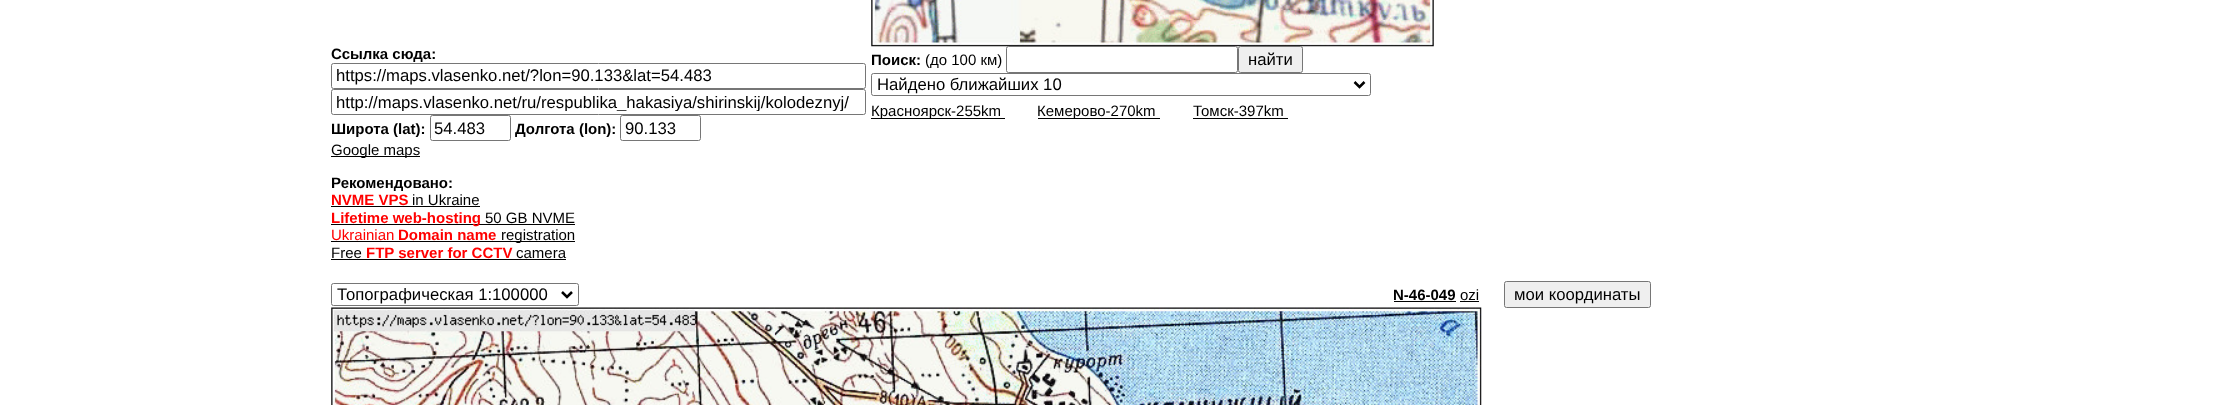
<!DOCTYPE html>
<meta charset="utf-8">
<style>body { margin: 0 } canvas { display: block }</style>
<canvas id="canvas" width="2240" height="405"></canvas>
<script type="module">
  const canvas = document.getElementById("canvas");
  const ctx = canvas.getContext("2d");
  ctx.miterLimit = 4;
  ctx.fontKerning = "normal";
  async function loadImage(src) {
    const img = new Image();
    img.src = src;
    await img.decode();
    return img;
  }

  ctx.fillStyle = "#ffffff";
  ctx.fillRect(0, 0, 2240, 405);
  ctx.font = "bold 15px Liberation Sans";
  ctx.fillStyle = "#000000";
  ctx.fillText("Ссылка сюда:", 331, 59);
  ctx.beginPath();
  ctx.roundRect(331.5, 63.5, 534, 25, 2);
  ctx.strokeStyle = "#767676";
  ctx.stroke();
  ctx.font = "16.7px Liberation Sans";
  ctx.fillText("https://maps.vlasenko.net/?lon=90.133&lat=54.483", 336, 81);
  ctx.beginPath();
  ctx.roundRect(331.5, 89.5, 534, 25, 2);
  ctx.stroke();
  ctx.save();
  ctx.beginPath();
  ctx.rect(336, 93, 525, 18);
  ctx.clip();
  ctx.fillText("http://maps.vlasenko.net/ru/respublika_hakasiya/shirinskij/kolodeznyj/", 336, 108);
  ctx.restore();
  ctx.font = "bold 15px Liberation Sans";
  ctx.fillText("Широта (lat):", 331, 134);
  ctx.beginPath();
  ctx.roundRect(430.5, 115.5, 80, 25, 2);
  ctx.stroke();
  ctx.font = "16.7px Liberation Sans";
  ctx.fillText("54.483", 434, 134);
  ctx.font = "bold 15px Liberation Sans";
  ctx.fillText("Долгота (lon):", 515, 134);
  ctx.beginPath();
  ctx.roundRect(620.5, 115.5, 80, 25, 2);
  ctx.stroke();
  ctx.font = "16.7px Liberation Sans";
  ctx.fillText("90.133", 625, 134);
  ctx.fillRect(331, 156, 89, 1);
  ctx.font = "15px Liberation Sans";
  ctx.fillText("Google maps", 331, 155);
  ctx.font = "bold 15px Liberation Sans";
  ctx.fillText("Рекомендовано:", 331, 188);
  ctx.fillStyle = "#ff0000";
  ctx.fillText("NVME VPS", 331, 205);
  ctx.fillStyle = "#000000";
  ctx.fillRect(331, 206, 149, 1);
  ctx.font = "15px Liberation Sans";
  ctx.fillText("in Ukraine", 412, 205);
  ctx.fillRect(331, 224, 244, 1);
  ctx.font = "bold 15px Liberation Sans";
  ctx.fillStyle = "#ff0000";
  ctx.fillText("Lifetime web-hosting", 331, 223);
  ctx.font = "15px Liberation Sans";
  ctx.fillStyle = "#000000";
  ctx.fillText("50 GB NVME", 485, 223);
  ctx.fillStyle = "#ff0000";
  ctx.fillText("Ukrainian", 331, 240);
  ctx.font = "bold 15px Liberation Sans";
  ctx.fillText("Domain name", 398, 240);
  ctx.fillStyle = "#000000";
  ctx.fillRect(331, 241, 244, 1);
  ctx.font = "15px Liberation Sans";
  ctx.fillText("registration", 501, 240);
  ctx.fillText("Free", 331, 258);
  ctx.font = "bold 15px Liberation Sans";
  ctx.fillStyle = "#ff0000";
  ctx.fillText("FTP server for CCTV", 366, 258);
  ctx.font = "15px Liberation Sans";
  ctx.fillStyle = "#000000";
  ctx.fillText("camera", 516, 258);
  ctx.fillRect(331, 259, 235, 1);
  ctx.drawImage(await loadImage("img1.png"), 871, 0, 563, 47);
  ctx.font = "bold 15px Liberation Sans";
  ctx.fillText("Поиск:", 871, 65);
  ctx.font = "15px Liberation Sans";
  ctx.fillText("(до 100 км)", 925, 65);
  ctx.fillStyle = "#ffffff";
  ctx.beginPath();
  ctx.roundRect(1006.5, 46.5, 231, 26, 2);
  ctx.fill();
  ctx.stroke();
  ctx.fillStyle = "#efefef";
  ctx.beginPath();
  ctx.roundRect(1238.5, 46.5, 64, 26, 2);
  ctx.fill();
  ctx.stroke();
  ctx.font = "16.7px Liberation Sans";
  ctx.fillStyle = "#000000";
  ctx.fillText("найти", 1248, 65);
  ctx.beginPath();
  ctx.roundRect(871.5, 73.5, 499, 22, 2);
  ctx.stroke();
  ctx.beginPath();
  ctx.moveTo(1354.5, 82);
  ctx.lineTo(1359.5, 87);
  ctx.lineTo(1364.5, 82);
  ctx.strokeStyle = "#000000";
  ctx.lineWidth = 2.5;
  ctx.stroke();
  ctx.fillText("Найдено ближайших 10", 877, 90);
  ctx.fillRect(871, 118, 134, 1);
  ctx.font = "15px Liberation Sans";
  ctx.fillText("Красноярск-255km", 871, 116);
  ctx.fillRect(1038, 118, 122, 1);
  ctx.fillText("Кемерово-270km", 1037, 116);
  ctx.fillText("Томск-397km", 1193, 116);
  ctx.fillRect(1193, 118, 95, 1);
  ctx.beginPath();
  ctx.roundRect(331.5, 283.5, 247, 22, 2);
  ctx.strokeStyle = "#767676";
  ctx.lineWidth = 1;
  ctx.stroke();
  ctx.beginPath();
  ctx.moveTo(562, 292);
  ctx.lineTo(567, 297);
  ctx.lineTo(572, 292);
  ctx.strokeStyle = "#000000";
  ctx.lineWidth = 2.5;
  ctx.stroke();
  ctx.font = "16.7px Liberation Sans";
  ctx.fillText("Топографическая 1:100000", 337, 300);
  ctx.font = "bold 15px Liberation Sans";
  ctx.fillText("N-46-049", 1393, 300);
  ctx.fillRect(1394, 301, 62, 1);
  ctx.font = "15px Liberation Sans";
  ctx.fillText("ozi", 1460, 300);
  ctx.fillRect(1460, 301, 19, 1);
  ctx.fillStyle = "#efefef";
  ctx.beginPath();
  ctx.roundRect(1504.5, 281.5, 146, 26, 2);
  ctx.fill();
  ctx.strokeStyle = "#767676";
  ctx.lineWidth = 1;
  ctx.stroke();
  ctx.font = "16.7px Liberation Sans";
  ctx.fillStyle = "#000000";
  ctx.fillText("мои координаты", 1514, 300);
  ctx.drawImage(await loadImage("img2.png"), 331, 307, 1151, 98);
</script>
